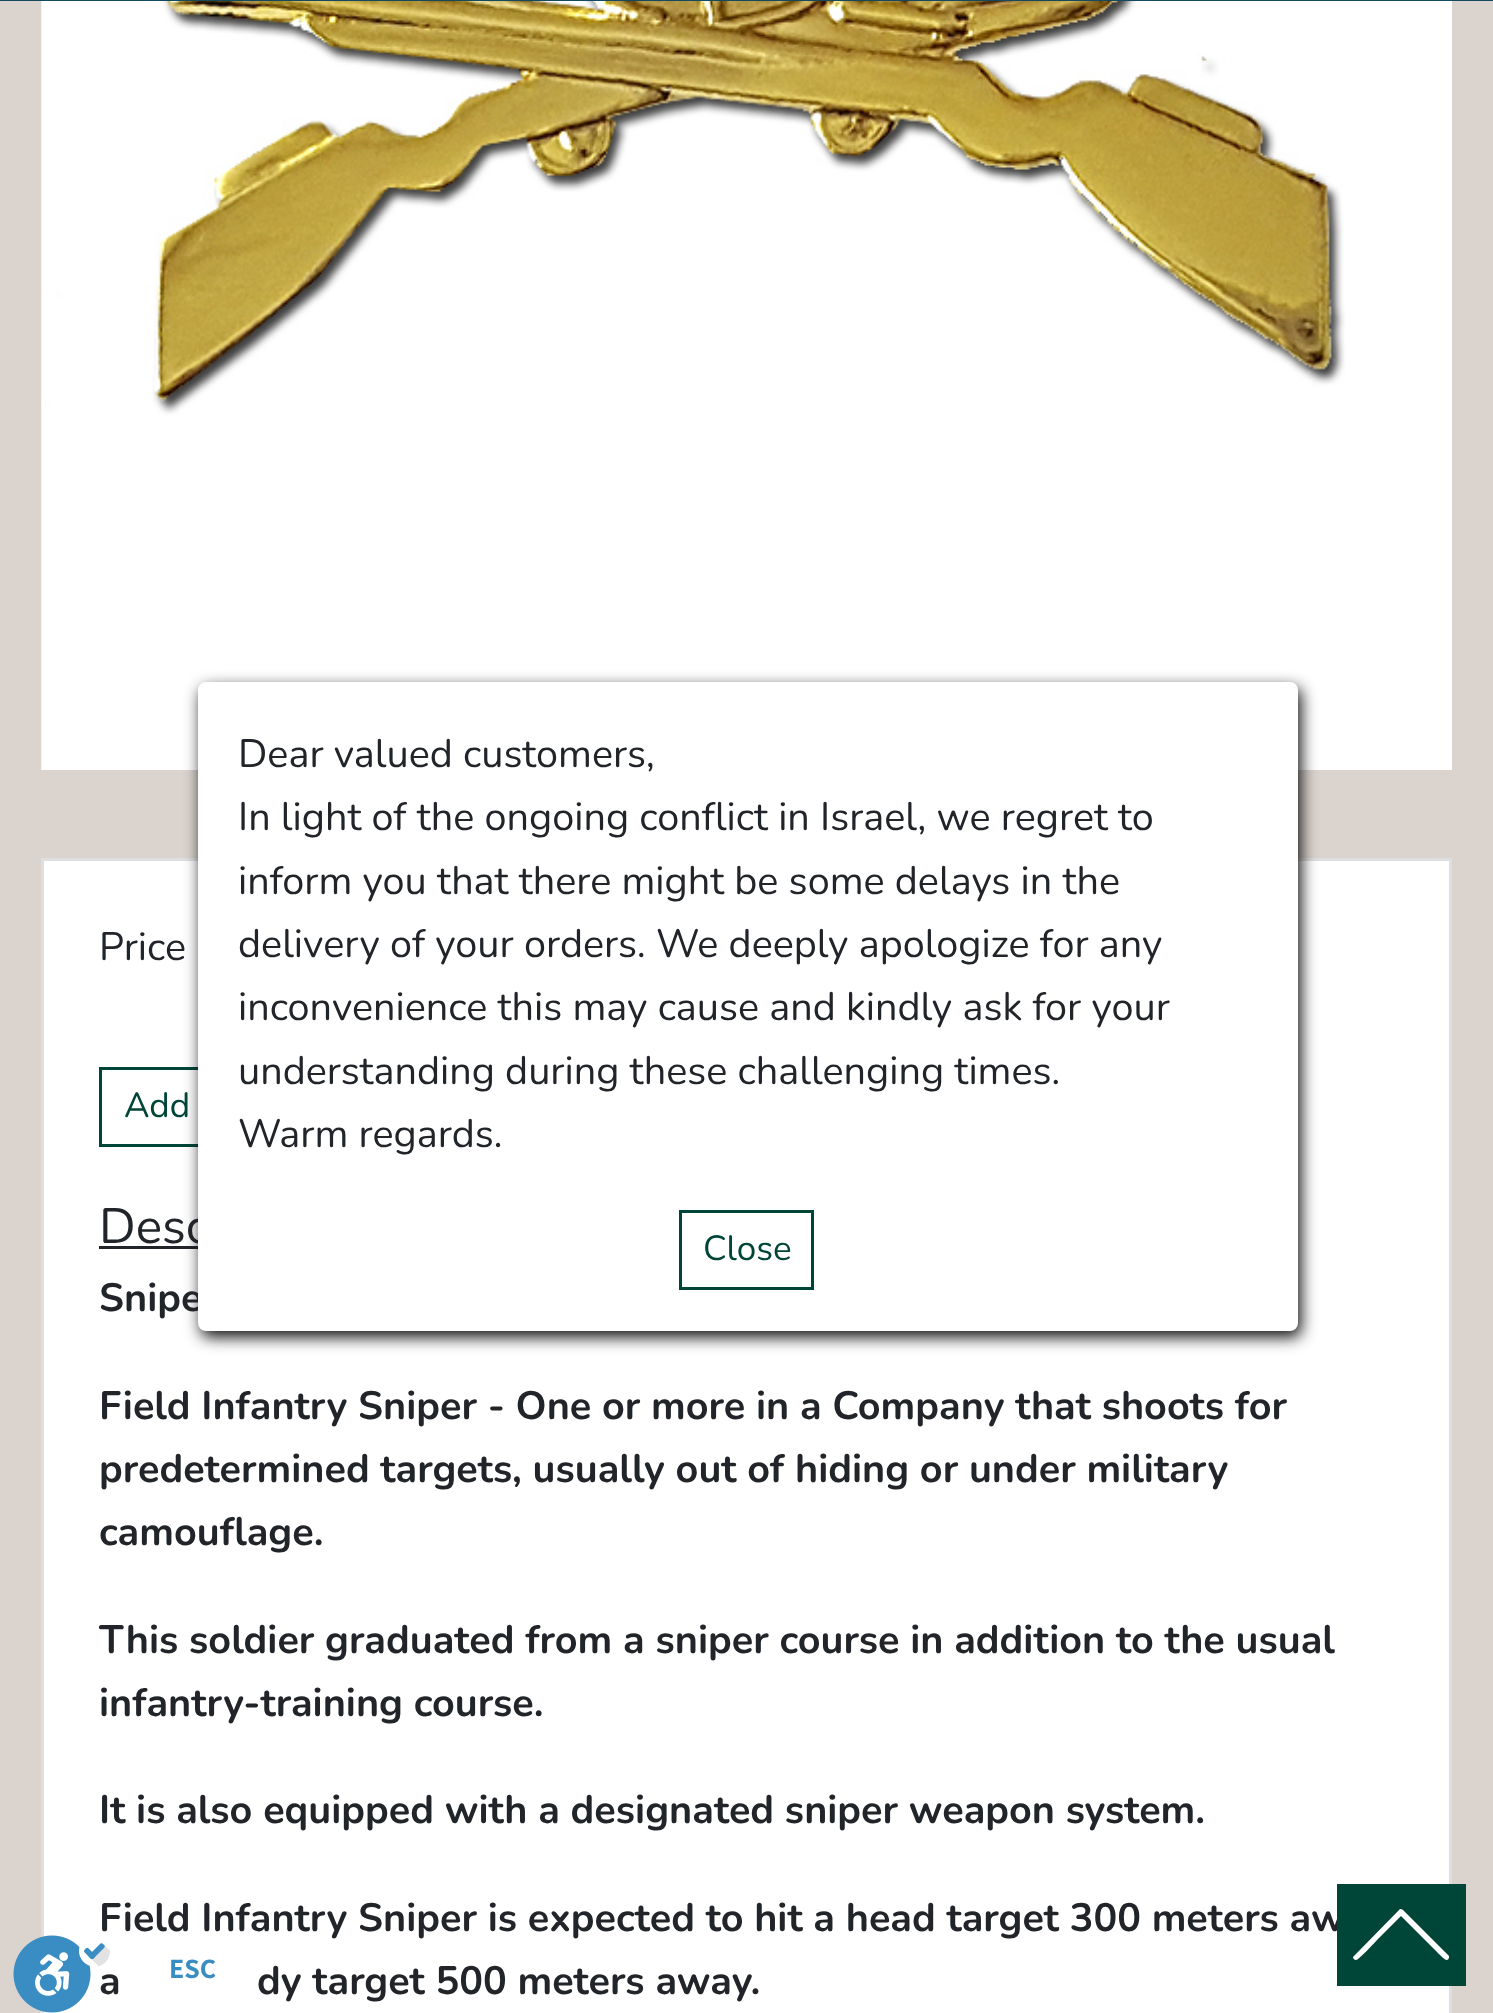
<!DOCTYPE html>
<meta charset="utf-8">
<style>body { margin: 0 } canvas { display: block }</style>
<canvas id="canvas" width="1493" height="2013"></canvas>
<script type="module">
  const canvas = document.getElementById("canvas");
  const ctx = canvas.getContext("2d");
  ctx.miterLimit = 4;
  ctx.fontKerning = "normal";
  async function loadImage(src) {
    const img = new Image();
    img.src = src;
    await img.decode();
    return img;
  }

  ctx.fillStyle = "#dbd4ce";
  ctx.fillRect(0, 0, 1493, 2013);
  ctx.drawImage(await loadImage("img1.png"), 41, 1, 1411, 769);
  ctx.fillStyle = "#ffffff";
  ctx.beginPath();
  ctx.rect(42.5, 859.5, 1408, 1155);
  ctx.fill();
  ctx.strokeStyle = "#dfdfdf";
  ctx.lineWidth = 3;
  ctx.stroke();
  ctx.strokeStyle = "#004638";
  ctx.strokeRect(100.5, 1068.5, 220, 77);
  ctx.fillStyle = "#212529";
  ctx.fillRect(99, 1246, 99, 3);
  ctx.fillStyle = "#0c0c0c";
  ctx.filter = "blur(8px)";
  ctx.beginPath();
  ctx.roundRect(201, 688, 1100, 649, 8);
  ctx.fill();
  ctx.filter = "none";
  ctx.font = "49.5px Nunito";
  ctx.fillStyle = "#212529";
  ctx.fillText("Desc", 99, 1243);
  ctx.font = "bold 39.6px Nunito";
  ctx.fillText("Snipe", 99, 1311);
  ctx.fillStyle = "#ffffff";
  ctx.beginPath();
  ctx.roundRect(198, 682, 1100, 649, 8);
  ctx.fill();
  ctx.font = "39.6px Nunito";
  ctx.fillStyle = "#212529";
  ctx.fillText("Dear valued customers,", 238, 767);
  ctx.fillText("In light of the ongoing conflict in Israel, we regret to", 238, 830);
  ctx.fillText("inform you that there might be some delays in the", 238, 894);
  ctx.fillText("delivery of your orders. We deeply apologize for any", 238, 957);
  ctx.fillText("inconvenience this may cause and kindly ask for your", 238, 1020);
  ctx.fillText("understanding during these challenging times.", 238, 1084);
  ctx.fillText("Warm regards.", 238, 1147);
  ctx.strokeRect(680.5, 1211.5, 132, 77);
  ctx.font = "35px Nunito";
  ctx.fillStyle = "#004638";
  ctx.fillText("Close", 703, 1260);
  ctx.font = "39.6px Nunito";
  ctx.fillStyle = "#212529";
  ctx.fillText("Price", 99, 960);
  ctx.font = "35px Nunito";
  ctx.fillStyle = "#004638";
  ctx.fillText("Add", 124, 1117);
  ctx.font = "bold 39.6px Nunito";
  ctx.fillStyle = "#212529";
  ctx.fillText("Field Infantry Sniper - One or more in a Company that shoots for", 99, 1419);
  ctx.fillText("predetermined targets, usually out of hiding or under military", 99, 1482);
  ctx.fillText("camouflage.", 99, 1545);
  ctx.fillText("This soldier graduated from a sniper course in addition to the usual", 99, 1653);
  ctx.fillText("infantry-training course.", 99, 1716);
  ctx.fillText("It is also equipped with a designated sniper weapon system.", 99, 1823);
  ctx.fillText("Field Infantry Sniper is expected to hit a head target 300 meters aw", 99, 1931);
  ctx.fillText("a", 99, 1994);
  ctx.fillText("dy target 500 meters away.", 257, 1994);
  ctx.fillStyle = "#004638";
  ctx.fillRect(1337, 1884, 129, 102);
  ctx.fillStyle = "#ffffff";
  ctx.beginPath();
  ctx.moveTo(1403, 1910);
  ctx.lineTo(1449, 1956);
  ctx.lineTo(1449, 1958);
  ctx.bezierCurveTo(1447, 1963, 1442, 1957, 1437, 1952);
  ctx.lineTo(1401, 1916);
  ctx.lineTo(1379, 1938);
  ctx.bezierCurveTo(1377, 1940, 1359, 1960, 1356, 1960);
  ctx.bezierCurveTo(1354, 1960, 1353, 1958, 1353, 1957);
  ctx.lineTo(1400, 1909);
  ctx.bezierCurveTo(1401, 1909, 1402, 1909, 1403, 1910);
  ctx.closePath();
  ctx.fill();
  ctx.fillStyle = "#15495f";
  ctx.fillRect(0, 0, 1493, 1);
  ctx.drawImage(await loadImage("img2.png"), 13, 1935, 97, 78);
  ctx.font = "bold 28px Assistant";
  ctx.fillStyle = "#3a8dc2";
  ctx.fillText("ESC", 169, 1978);
</script>
